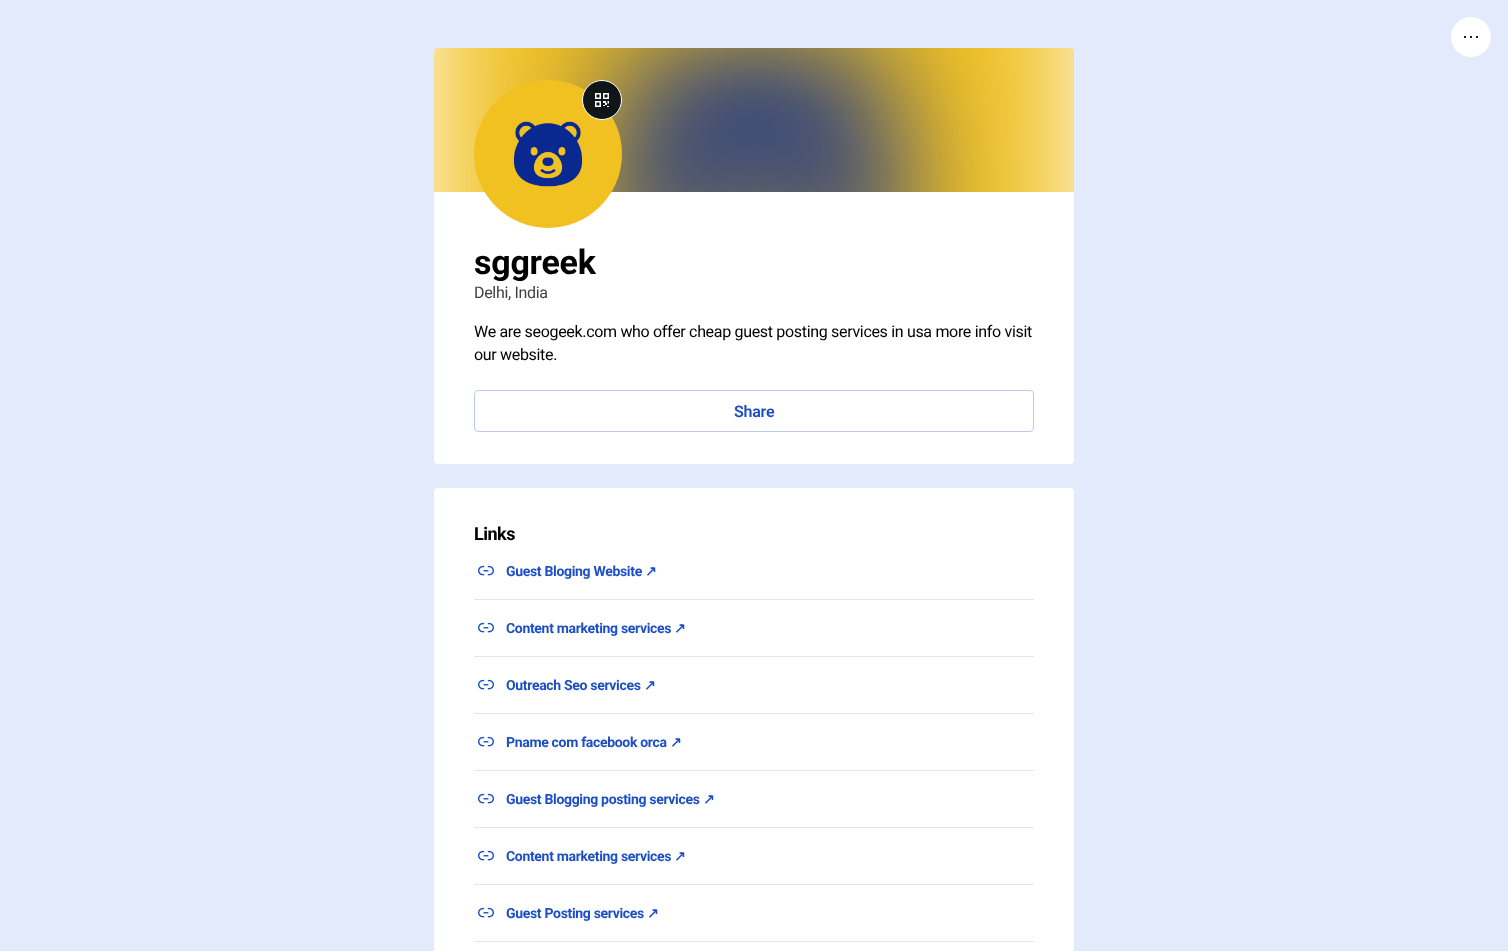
<!DOCTYPE html>
<meta charset="utf-8">
<style>body { margin: 0 } canvas { display: block }</style>
<canvas id="canvas" width="1508" height="951"></canvas>
<script type="module">
  const canvas = document.getElementById("canvas");
  const ctx = canvas.getContext("2d");
  ctx.miterLimit = 4;
  ctx.fontKerning = "normal";
  async function loadImage(src) {
    const img = new Image();
    img.src = src;
    await img.decode();
    return img;
  }

  ctx.fillStyle = "#e3eafc";
  ctx.fillRect(0, 0, 1508, 951);
  ctx.fillStyle = "#ffffff";
  ctx.beginPath();
  ctx.arc(1471, 37, 20, 0, Math.PI * 2);
  ctx.fill();
  ctx.beginPath();
  ctx.moveTo(1472, 37);
  ctx.lineTo(1470, 37);
  ctx.moveTo(1478, 37);
  ctx.lineTo(1476, 37);
  ctx.moveTo(1466, 37);
  ctx.lineTo(1464, 37);
  ctx.strokeStyle = "#1e1e1e";
  ctx.lineWidth = 2;
  ctx.stroke();
  ctx.beginPath();
  ctx.roundRect(434, 48, 640, 416, 4);
  ctx.fill();
  ctx.drawImage(await loadImage("img1.png"), 434, 48, 640, 144);
  ctx.drawImage(await loadImage("img2.png"), 474, 80, 148, 148);
  ctx.fillStyle = "#101517";
  ctx.beginPath();
  ctx.arc(602, 100, 19.5, 0, Math.PI * 2);
  ctx.fill();
  ctx.strokeStyle = "#ffffff";
  ctx.lineWidth = 1;
  ctx.stroke();
  ctx.drawImage(await loadImage("img3.png"), 595, 93, 14, 14);
  ctx.letterSpacing = "-0.25px";
  ctx.font = "bold 34px Roboto";
  ctx.fillStyle = "#000000";
  ctx.fillText("sggreek", 474, 274);
  ctx.letterSpacing = "-0.32px";
  ctx.font = "16px Roboto";
  ctx.fillStyle = "#404040";
  ctx.fillText("Delhi, India", 474, 298);
  ctx.fillStyle = "#000000";
  ctx.fillText("We are seogeek.com who offer cheap guest posting services in usa more info visit", 474, 337);
  ctx.fillText("our website.", 474, 360);
  ctx.beginPath();
  ctx.roundRect(474.5, 390.5, 559, 41, 3.5);
  ctx.strokeStyle = "#bbcaed";
  ctx.stroke();
  ctx.letterSpacing = "-0.25px";
  ctx.font = "600 16px Roboto";
  ctx.fillStyle = "#1d4fc4";
  ctx.fillText("Share", 734, 417);
  ctx.fillStyle = "#ffffff";
  ctx.beginPath();
  ctx.roundRect(434, 488, 640, 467, 4);
  ctx.fill();
  ctx.letterSpacing = "-0.5px";
  ctx.font = "bold 18px Roboto";
  ctx.fillStyle = "#000000";
  ctx.fillText("Links", 474, 540);
  ctx.fillStyle = "#e6e6e6";
  ctx.fillRect(474, 599, 560, 1);
  ctx.drawImage(await loadImage("img4.png"), 478, 565, 16, 11);
  ctx.letterSpacing = "-0.32px";
  ctx.font = "bold 14px Roboto";
  ctx.fillStyle = "#1d4fc4";
  ctx.fillText("Guest Bloging Website", 506, 576);
  ctx.font = "bold 14px DejaVu Sans";
  ctx.fillText("↗", 645, 576);
  ctx.fillStyle = "#e6e6e6";
  ctx.fillRect(474, 656, 560, 1);
  ctx.drawImage(await loadImage("img4.png"), 478, 622, 16, 11);
  ctx.font = "bold 14px Roboto";
  ctx.fillStyle = "#1d4fc4";
  ctx.fillText("Content marketing services", 506, 633);
  ctx.font = "bold 14px DejaVu Sans";
  ctx.fillText("↗", 674, 633);
  ctx.fillStyle = "#e6e6e6";
  ctx.fillRect(474, 713, 560, 1);
  ctx.drawImage(await loadImage("img4.png"), 478, 679, 16, 11);
  ctx.font = "bold 14px Roboto";
  ctx.fillStyle = "#1d4fc4";
  ctx.fillText("Outreach Seo services", 506, 690);
  ctx.font = "bold 14px DejaVu Sans";
  ctx.fillText("↗", 644, 690);
  ctx.fillStyle = "#e6e6e6";
  ctx.fillRect(474, 770, 560, 1);
  ctx.drawImage(await loadImage("img4.png"), 478, 736, 16, 11);
  ctx.font = "bold 14px Roboto";
  ctx.fillStyle = "#1d4fc4";
  ctx.fillText("Pname com facebook orca", 506, 747);
  ctx.font = "bold 14px DejaVu Sans";
  ctx.fillText("↗", 670, 747);
  ctx.fillStyle = "#e6e6e6";
  ctx.fillRect(474, 827, 560, 1);
  ctx.drawImage(await loadImage("img4.png"), 478, 793, 16, 11);
  ctx.font = "bold 14px Roboto";
  ctx.fillStyle = "#1d4fc4";
  ctx.fillText("Guest Blogging posting services", 506, 804);
  ctx.font = "bold 14px DejaVu Sans";
  ctx.fillText("↗", 703, 804);
  ctx.fillStyle = "#e6e6e6";
  ctx.fillRect(474, 884, 560, 1);
  ctx.drawImage(await loadImage("img4.png"), 478, 850, 16, 11);
  ctx.font = "bold 14px Roboto";
  ctx.fillStyle = "#1d4fc4";
  ctx.fillText("Content marketing services", 506, 861);
  ctx.font = "bold 14px DejaVu Sans";
  ctx.fillText("↗", 674, 861);
  ctx.fillStyle = "#e6e6e6";
  ctx.fillRect(474, 941, 560, 1);
  ctx.drawImage(await loadImage("img4.png"), 478, 907, 16, 11);
  ctx.font = "bold 14px Roboto";
  ctx.fillStyle = "#1d4fc4";
  ctx.fillText("Guest Posting services", 506, 918);
  ctx.font = "bold 14px DejaVu Sans";
  ctx.fillText("↗", 647, 918);
</script>
